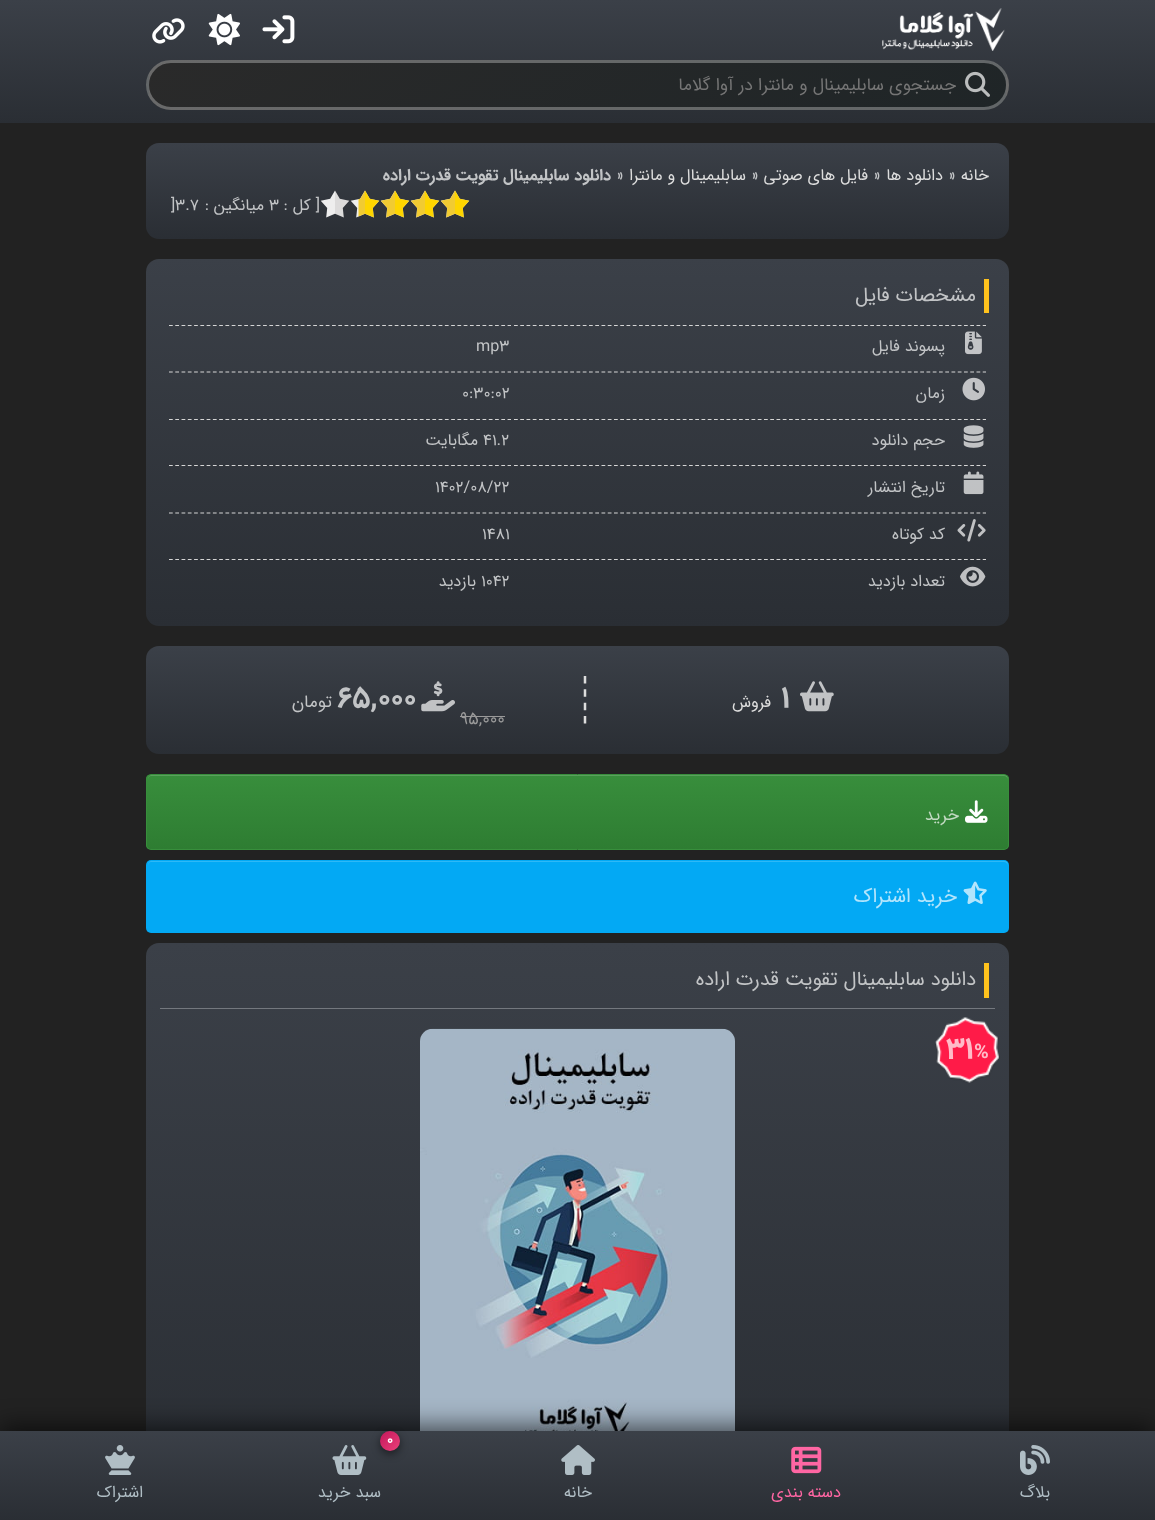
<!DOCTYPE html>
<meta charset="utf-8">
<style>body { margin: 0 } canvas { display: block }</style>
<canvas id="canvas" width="1155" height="1520"></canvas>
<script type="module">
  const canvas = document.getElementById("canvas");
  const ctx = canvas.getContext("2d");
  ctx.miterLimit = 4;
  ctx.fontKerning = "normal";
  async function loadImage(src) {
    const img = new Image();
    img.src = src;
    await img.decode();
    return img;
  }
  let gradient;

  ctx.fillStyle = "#222222";
  ctx.fillRect(0, 0, 1155, 1520);
  gradient = ctx.createLinearGradient(578, 0, 578, 123);
  gradient.addColorStop(0, "#3b4048");
  gradient.addColorStop(1, "#2a2e34");
  ctx.fillStyle = gradient;
  ctx.fillRect(0, 0, 1155, 123);
  ctx.drawImage(await loadImage("img1.png"), 882, 8, 123, 43);
  ctx.drawImage(await loadImage("img2.png"), 262, 15, 33, 29);
  ctx.drawImage(await loadImage("img3.png"), 208, 13, 32, 33);
  ctx.drawImage(await loadImage("img4.png"), 152, 18, 33, 26);
  ctx.save();
  ctx.beginPath();
  ctx.roundRect(146, 60, 863, 50, 25);
  ctx.clip();
  gradient = ctx.createLinearGradient(426, -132, 729, 302);
  gradient.addColorStop(0, "#2a2a2a");
  gradient.addColorStop(1, "#1f2527");
  ctx.fillStyle = gradient;
  ctx.fillRect(149, 63, 857, 45);
  gradient = ctx.createLinearGradient(426, -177, 729, 257);
  gradient.addColorStop(0, "#2a2a2a");
  gradient.addColorStop(1, "#1f2527");
  ctx.fillStyle = gradient;
  ctx.fillRect(159, 60, 837, 3);
  gradient = ctx.createLinearGradient(-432, -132, -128, 302);
  gradient.addColorStop(0, "#2a2a2a");
  gradient.addColorStop(1, "#1f2527");
  ctx.fillStyle = gradient;
  ctx.fillRect(146, 73, 3, 24);
  gradient = ctx.createLinearGradient(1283, -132, 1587, 302);
  gradient.addColorStop(0, "#2a2a2a");
  gradient.addColorStop(1, "#1f2527");
  ctx.fillStyle = gradient;
  ctx.fillRect(1006, 73, 3, 24);
  gradient = ctx.createLinearGradient(426, -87, 729, 347);
  gradient.addColorStop(0, "#2a2a2a");
  gradient.addColorStop(1, "#1f2527");
  ctx.fillStyle = gradient;
  ctx.fillRect(161, 108, 833, 2);
  ctx.restore();
  ctx.beginPath();
  ctx.roundRect(147.5, 61.5, 860, 47, 23.5);
  ctx.strokeStyle = "rgba(255, 255, 255, 0.3)";
  ctx.lineWidth = 3;
  ctx.stroke();
  ctx.drawImage(await loadImage("img5.png"), 965, 71, 25, 26);
  ctx.direction = "rtl";
  ctx.font = "17.5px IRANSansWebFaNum";
  ctx.fillStyle = "#757575";
  ctx.fillText("جستجوی سابلیمینال و مانترا در آوا گلاما", 956, 90);
  gradient = ctx.createLinearGradient(578, 142, 578, 239);
  gradient.addColorStop(0, "#3b4048");
  gradient.addColorStop(1, "#2a2e34");
  ctx.fillStyle = gradient;
  ctx.beginPath();
  ctx.roundRect(146, 143, 863, 96, 13);
  ctx.fill();
  ctx.font = "16.25px IRANSansWebFaNum";
  ctx.fillStyle = "#dddddd";
  ctx.fillText("خانه", 989, 180);
  ctx.direction = "ltr";
  ctx.fillStyle = "#c2c4c6";
  ctx.fillText("»", 948, 180);
  ctx.direction = "rtl";
  ctx.fillStyle = "#dddddd";
  ctx.fillText("دانلود ها", 943, 180);
  ctx.direction = "ltr";
  ctx.fillStyle = "#c2c4c6";
  ctx.fillText("»", 873, 180);
  ctx.direction = "rtl";
  ctx.fillStyle = "#dddddd";
  ctx.fillText("فایل های صوتی", 868, 180);
  ctx.direction = "ltr";
  ctx.fillStyle = "#c2c4c6";
  ctx.fillText("»", 751, 180);
  ctx.direction = "rtl";
  ctx.fillStyle = "#dddddd";
  ctx.fillText("سابلیمینال و مانترا", 746, 180);
  ctx.direction = "ltr";
  ctx.fillStyle = "#c2c4c6";
  ctx.fillText("»", 616, 180);
  ctx.direction = "rtl";
  ctx.font = "bold 16.25px IRANSansWebFaNum";
  ctx.fillText("دانلود سابلیمینال تقویت قدرت اراده", 611, 180);
  ctx.drawImage(await loadImage("img6.png"), 320, 190, 150, 28);
  ctx.drawImage(await loadImage("img7.png"), 358, 190, 112, 28);
  ctx.font = "16.25px IRANSansWebFaNum";
  ctx.fillText("[ کل :", 320, 210);
  ctx.direction = "ltr";
  ctx.fillText("3", 269, 210);
  ctx.direction = "rtl";
  ctx.fillText("میانگین :", 264, 210);
  ctx.direction = "ltr";
  ctx.fillText("3.7", 175, 210);
  ctx.fillText("]", 171, 210);
  gradient = ctx.createLinearGradient(578, 259, 578, 626);
  gradient.addColorStop(0, "#3b4048");
  gradient.addColorStop(1, "#2a2e34");
  ctx.fillStyle = gradient;
  ctx.beginPath();
  ctx.roundRect(146, 259, 863, 367, 13);
  ctx.fill();
  ctx.fillStyle = "#ffc21d";
  ctx.fillRect(984, 279, 5, 34);
  ctx.direction = "rtl";
  ctx.font = "20px IRANSansWebFaNum";
  ctx.fillStyle = "#c2c4c6";
  ctx.fillText("مشخصات فایل", 976, 301);
  ctx.beginPath();
  ctx.moveTo(514, 325.5);
  ctx.lineTo(986, 325.5);
  ctx.strokeStyle = "#d5d5d5";
  ctx.lineWidth = 1.2;
  ctx.setLineDash([3.75, 2.5]);
  ctx.stroke();
  ctx.drawImage(await loadImage("img8.png"), 965, 331, 17, 24);
  ctx.font = "16.25px IRANSansWebFaNum";
  ctx.fillText("پسوند فایل", 945, 351);
  ctx.beginPath();
  ctx.moveTo(169, 325.5);
  ctx.lineTo(511, 325.5);
  ctx.setLineDash([3.75, 2.52]);
  ctx.stroke();
  ctx.direction = "ltr";
  ctx.fillText("mp3", 476, 351);
  ctx.beginPath();
  ctx.moveTo(514, 372);
  ctx.lineTo(986, 372);
  ctx.setLineDash([3.75, 2.5]);
  ctx.stroke();
  ctx.drawImage(await loadImage("img9.png"), 962, 377, 23, 24);
  ctx.direction = "rtl";
  ctx.fillText("زمان", 945, 398);
  ctx.beginPath();
  ctx.moveTo(169, 372);
  ctx.lineTo(511, 372);
  ctx.setLineDash([3.75, 2.52]);
  ctx.stroke();
  ctx.direction = "ltr";
  ctx.fillText("0:30:02", 462, 398);
  ctx.beginPath();
  ctx.moveTo(514, 419.5);
  ctx.lineTo(986, 419.5);
  ctx.setLineDash([3.75, 2.5]);
  ctx.stroke();
  ctx.drawImage(await loadImage("img10.png"), 963, 425, 21, 23);
  ctx.direction = "rtl";
  ctx.fillText("حجم دانلود", 945, 445);
  ctx.beginPath();
  ctx.moveTo(169, 419.5);
  ctx.lineTo(511, 419.5);
  ctx.setLineDash([3.75, 2.52]);
  ctx.stroke();
  ctx.direction = "ltr";
  ctx.fillText("41.2", 483, 445);
  ctx.direction = "rtl";
  ctx.fillText("مگابایت", 478, 445);
  ctx.beginPath();
  ctx.moveTo(514, 465.5);
  ctx.lineTo(986, 465.5);
  ctx.setLineDash([3.75, 2.5]);
  ctx.stroke();
  ctx.drawImage(await loadImage("img11.png"), 963, 471, 21, 24);
  ctx.fillText("تاریخ انتشار", 945, 492);
  ctx.beginPath();
  ctx.moveTo(169, 465.5);
  ctx.lineTo(511, 465.5);
  ctx.setLineDash([3.75, 2.52]);
  ctx.stroke();
  ctx.direction = "ltr";
  ctx.fillText("۱۴۰۲/۰۸/۲۲", 435, 492);
  ctx.beginPath();
  ctx.moveTo(514, 513);
  ctx.lineTo(986, 513);
  ctx.setLineDash([3.75, 2.5]);
  ctx.stroke();
  ctx.drawImage(await loadImage("img12.png"), 957, 519, 29, 23);
  ctx.direction = "rtl";
  ctx.fillText("کد کوتاه", 945, 539);
  ctx.beginPath();
  ctx.moveTo(169, 513);
  ctx.lineTo(511, 513);
  ctx.setLineDash([3.75, 2.52]);
  ctx.stroke();
  ctx.direction = "ltr";
  ctx.fillText("1481", 482, 539);
  ctx.beginPath();
  ctx.moveTo(514, 559.5);
  ctx.lineTo(986, 559.5);
  ctx.setLineDash([3.75, 2.5]);
  ctx.stroke();
  ctx.drawImage(await loadImage("img13.png"), 960, 566, 26, 21);
  ctx.direction = "rtl";
  ctx.fillText("تعداد بازدید", 945, 586);
  ctx.beginPath();
  ctx.moveTo(169, 559.5);
  ctx.lineTo(511, 559.5);
  ctx.setLineDash([3.75, 2.52]);
  ctx.stroke();
  ctx.direction = "ltr";
  ctx.fillText("1042", 481, 586);
  ctx.direction = "rtl";
  ctx.fillText("بازدید", 476, 586);
  gradient = ctx.createLinearGradient(578, 646, 578, 754);
  gradient.addColorStop(0, "#3b4048");
  gradient.addColorStop(1, "#2a2e34");
  ctx.fillStyle = gradient;
  ctx.beginPath();
  ctx.roundRect(146, 646, 863, 108, 13);
  ctx.fill();
  ctx.beginPath();
  ctx.moveTo(585, 676);
  ctx.lineTo(585, 724);
  ctx.strokeStyle = "#dddddd";
  ctx.lineWidth = 2.5;
  ctx.setLineDash([7.5, 5.84]);
  ctx.stroke();
  ctx.drawImage(await loadImage("img14.png"), 800, 681, 34, 31);
  ctx.direction = "ltr";
  ctx.font = "bold 30px IRANSansWebFaNum";
  ctx.fillStyle = "#c2c4c6";
  ctx.fillText("1", 781, 707);
  ctx.direction = "rtl";
  ctx.font = "16.25px IRANSansWebFaNum";
  ctx.fillStyle = "#dddddd";
  ctx.fillText("فروش", 771, 707);
  ctx.drawImage(await loadImage("img15.png"), 421, 681, 34, 31);
  ctx.direction = "ltr";
  ctx.font = "bold 30px IRANSansWebFaNum";
  ctx.fillStyle = "#c2c4c6";
  ctx.fillText("65,000", 337, 707);
  ctx.direction = "rtl";
  ctx.font = "17.5px IRANSansWebFaNum";
  ctx.fillText("تومان", 332, 707);
  ctx.direction = "ltr";
  ctx.fillStyle = "#999999";
  ctx.fillText("95,000", 460, 724);
  ctx.fillRect(460, 716, 45, 1);
  ctx.save();
  ctx.beginPath();
  ctx.roundRect(146, 774, 863, 76, 5);
  ctx.clip();
  gradient = ctx.createLinearGradient(578, 775, 578, 849);
  gradient.addColorStop(0, "#388e3c");
  gradient.addColorStop(1, "#2e7d32");
  ctx.fillStyle = gradient;
  ctx.fillRect(146, 775, 863, 74);
  ctx.restore();
  ctx.fillStyle = "#5aa15d";
  ctx.beginPath();
  ctx.moveTo(151, 776);
  ctx.lineTo(1004, 776);
  ctx.bezierCurveTo(1006, 776, 1008, 778, 1008, 780);
  ctx.bezierCurveTo(1008, 777, 1007, 775, 1004, 775);
  ctx.lineTo(152, 775);
  ctx.bezierCurveTo(149, 775, 148, 777, 148, 780);
  ctx.bezierCurveTo(148, 778, 149, 776, 151, 776);
  ctx.closePath();
  ctx.fill();
  ctx.beginPath();
  ctx.roundRect(146.5, 774.5, 862, 75, 4.5);
  ctx.strokeStyle = "#388e3c";
  ctx.lineWidth = 1;
  ctx.setLineDash([]);
  ctx.stroke();
  ctx.drawImage(await loadImage("img16.png"), 965, 800, 23, 23);
  ctx.direction = "rtl";
  ctx.font = "17px IRANSansWebFaNum";
  ctx.fillStyle = "#c2dac3";
  ctx.fillText("خرید", 959, 820);
  ctx.fillStyle = "#03a9f4";
  ctx.beginPath();
  ctx.roundRect(146, 860, 863, 73, 5);
  ctx.fill();
  ctx.fillStyle = "#2eb8f6";
  ctx.beginPath();
  ctx.moveTo(151, 862);
  ctx.lineTo(1004, 862);
  ctx.bezierCurveTo(1006, 862, 1008, 864, 1008, 866);
  ctx.bezierCurveTo(1008, 863, 1007, 861, 1004, 861);
  ctx.lineTo(152, 861);
  ctx.bezierCurveTo(149, 861, 148, 863, 148, 866);
  ctx.bezierCurveTo(148, 864, 149, 862, 151, 862);
  ctx.closePath();
  ctx.fill();
  ctx.drawImage(await loadImage("img17.png"), 963, 881, 24, 23);
  ctx.font = "20px IRANSansWebFaNum";
  ctx.fillStyle = "#b3e5fc";
  ctx.fillText("خرید اشتراک", 957, 902);
  gradient = ctx.createLinearGradient(578, 943, 578, 1496);
  gradient.addColorStop(0, "#3b4048");
  gradient.addColorStop(1, "#2a2e34");
  ctx.fillStyle = gradient;
  ctx.beginPath();
  ctx.roundRect(146, 943, 863, 553, 13);
  ctx.fill();
  ctx.fillStyle = "#74787e";
  ctx.fillRect(160, 1008, 835, 1);
  ctx.fillStyle = "#ffc21d";
  ctx.fillRect(984, 963, 5, 35);
  ctx.fillStyle = "#c2c4c6";
  ctx.fillText("دانلود سابلیمینال تقویت قدرت اراده", 976, 985);
  ctx.drawImage(await loadImage("img18.png"), 935, 1017, 65, 66);
  ctx.direction = "ltr";
  ctx.font = "bold 20px IRANSansWebFaNum";
  ctx.fillStyle = "#ffbbc8";
  ctx.fillText("%", 974, 1058);
  ctx.font = "bold 30px IRANSansWebFaNum";
  ctx.fillText("31", 946, 1058);
  ctx.drawImage(await loadImage("img19.png"), 420, 1028, 315, 403);
  ctx.fillStyle = "rgba(0, 0, 0, 0.6)";
  ctx.filter = "blur(12.5px)";
  ctx.beginPath();
  ctx.rect(0, 1426, 1155, 89);
  ctx.fill();
  ctx.filter = "none";
  gradient = ctx.createLinearGradient(578, 1431, 578, 1520);
  gradient.addColorStop(0, "#3b4048");
  gradient.addColorStop(1, "#2a2e34");
  ctx.fillStyle = gradient;
  ctx.fillRect(0, 1431, 1155, 89);
  ctx.drawImage(await loadImage("img20.png"), 1020, 1445, 30, 30);
  ctx.direction = "rtl";
  ctx.font = "16.25px IRANSansWebFaNum";
  ctx.fillStyle = "#b0bec5";
  ctx.fillText("بلاگ", 1050, 1497);
  ctx.drawImage(await loadImage("img21.png"), 791, 1446, 31, 28);
  ctx.fillStyle = "#ff66a3";
  ctx.fillText("دسته بندی", 841, 1497);
  ctx.drawImage(await loadImage("img22.png"), 561, 1445, 34, 30);
  ctx.fillStyle = "#b0bec5";
  ctx.fillText("خانه", 592, 1497);
  ctx.fillStyle = "rgba(0, 0, 0, 0.5)";
  ctx.filter = "blur(4px)";
  ctx.beginPath();
  ctx.roundRect(380, 1434, 20, 20, 10);
  ctx.fill();
  ctx.filter = "none";
  gradient = ctx.createLinearGradient(380, 1431, 400, 1451);
  gradient.addColorStop(0, "#c2185b");
  gradient.addColorStop(1, "#ec407a");
  ctx.fillStyle = gradient;
  ctx.beginPath();
  ctx.arc(390, 1441, 10, 0, Math.PI * 2);
  ctx.fill();
  ctx.direction = "ltr";
  ctx.font = "bold 14px IRANSansWebFaNum";
  ctx.fillStyle = "#ffffff";
  ctx.fillText("0", 387, 1444);
  ctx.drawImage(await loadImage("img23.png"), 332, 1445, 35, 30);
  ctx.direction = "rtl";
  ctx.font = "16.25px IRANSansWebFaNum";
  ctx.fillStyle = "#b0bec5";
  ctx.fillText("سبد خرید", 381, 1497);
  ctx.drawImage(await loadImage("img24.png"), 105, 1445, 30, 30);
  ctx.fillText("اشتراک", 143, 1497);
</script>
